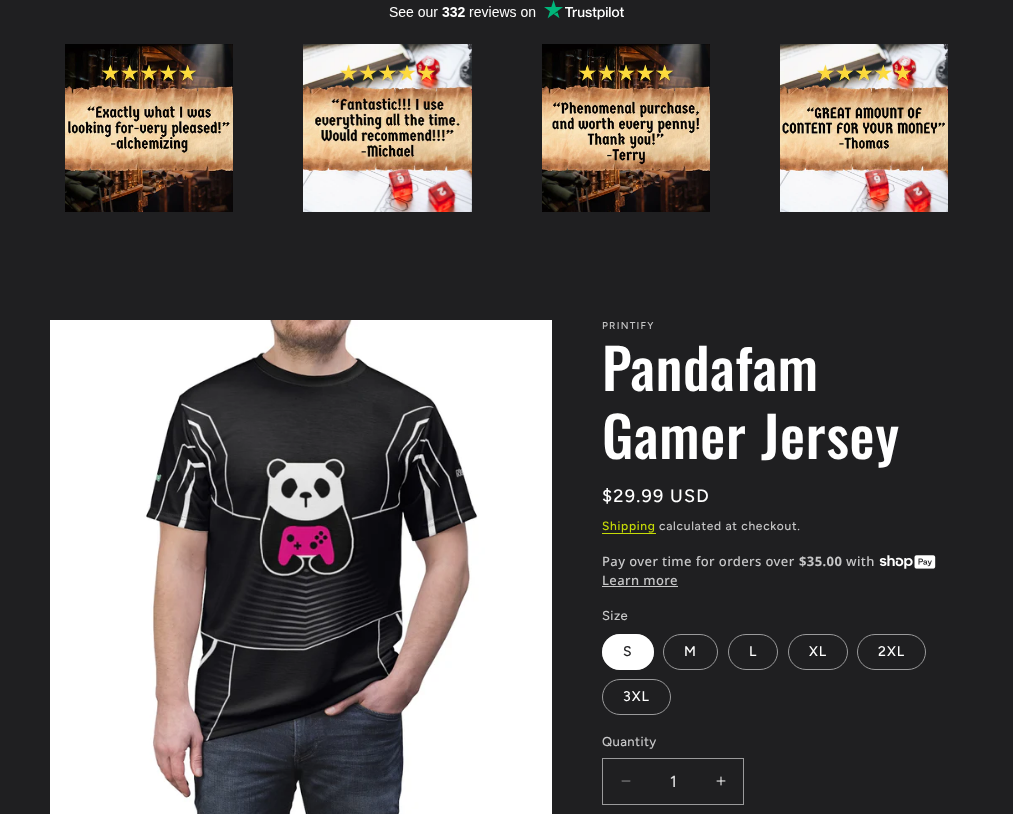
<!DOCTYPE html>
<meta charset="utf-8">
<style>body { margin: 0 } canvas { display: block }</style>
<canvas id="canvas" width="1013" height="814"></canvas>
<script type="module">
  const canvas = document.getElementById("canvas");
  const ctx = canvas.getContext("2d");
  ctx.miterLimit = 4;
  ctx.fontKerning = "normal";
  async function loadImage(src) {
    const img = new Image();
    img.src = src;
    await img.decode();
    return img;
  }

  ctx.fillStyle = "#1f1f21";
  ctx.fillRect(0, 0, 1013, 814);
  ctx.drawImage(await loadImage("img1.png"), 389, 0, 235, 20);
  ctx.drawImage(await loadImage("img2.png"), 65, 44, 168, 168);
  ctx.drawImage(await loadImage("img3.png"), 303, 44, 169, 168);
  ctx.drawImage(await loadImage("img4.png"), 542, 44, 168, 168);
  ctx.drawImage(await loadImage("img5.png"), 780, 44, 168, 168);
  ctx.drawImage(await loadImage("img6.png"), 50, 320, 502, 494);
  ctx.letterSpacing = "1.25px";
  ctx.font = "500 10px Figtree";
  ctx.fillStyle = "#c7c7c8";
  ctx.fillText("PRINTIFY", 602, 329);
  ctx.letterSpacing = "0.8px";
  ctx.font = "500 56px Oswald";
  ctx.fillStyle = "#ffffff";
  ctx.fillText("Pandafam", 602, 391);
  ctx.fillText("Gamer Jersey", 602, 459);
  ctx.letterSpacing = "1.25px";
  ctx.font = "500 18px Figtree";
  ctx.fillText("$29.99 USD", 602, 502);
  ctx.letterSpacing = "0.7px";
  ctx.font = "500 12px Figtree";
  ctx.fillStyle = "#c6db07";
  ctx.fillText("Shipping", 602, 530);
  ctx.fillRect(602, 533, 54, 1);
  ctx.fillStyle = "#c7c7c8";
  ctx.fillText("calculated at checkout.", 659, 530);
  ctx.letterSpacing = "0.4px";
  ctx.font = "500 13px Noto Sans";
  ctx.fillText("Pay over time for orders over", 602, 566);
  ctx.font = "bold 13px Noto Sans";
  ctx.fillText("$35.00", 799, 566);
  ctx.font = "500 13px Noto Sans";
  ctx.fillText("with", 846, 566);
  ctx.drawImage(await loadImage("img7.png"), 879, 555, 57, 14);
  ctx.fillText("Learn more", 602, 585);
  ctx.fillRect(602, 586, 76, 1);
  ctx.font = "500 13px Figtree";
  ctx.fillText("Size", 602, 620);
  ctx.fillStyle = "#ffffff";
  ctx.beginPath();
  ctx.roundRect(602, 634, 52, 36, 18);
  ctx.fill();
  ctx.beginPath();
  ctx.roundRect(602.5, 634.5, 51, 35, 17.5);
  ctx.strokeStyle = "rgba(255, 255, 255, 0.55)";
  ctx.stroke();
  ctx.letterSpacing = "1px";
  ctx.font = "500 14px Figtree";
  ctx.fillStyle = "#1f1f21";
  ctx.fillText("S", 623, 656);
  ctx.beginPath();
  ctx.roundRect(663.5, 634.5, 54, 35, 17.5);
  ctx.strokeStyle = "#9a9a9b";
  ctx.stroke();
  ctx.fillStyle = "#ffffff";
  ctx.fillText("M", 684, 656);
  ctx.beginPath();
  ctx.roundRect(728.5, 634.5, 49, 35, 17.5);
  ctx.stroke();
  ctx.fillText("L", 749, 656);
  ctx.beginPath();
  ctx.roundRect(788.5, 634.5, 59, 35, 17.5);
  ctx.stroke();
  ctx.fillText("XL", 809, 656);
  ctx.beginPath();
  ctx.roundRect(857.5, 634.5, 68, 35, 17.5);
  ctx.stroke();
  ctx.fillText("2XL", 878, 656);
  ctx.beginPath();
  ctx.roundRect(602.5, 679.5, 68, 35, 17.5);
  ctx.stroke();
  ctx.fillText("3XL", 623, 701);
  ctx.letterSpacing = "0.4px";
  ctx.font = "500 13px Figtree";
  ctx.fillStyle = "#c7c7c8";
  ctx.fillText("Quantity", 602, 746);
  ctx.drawImage(await loadImage("img8.png"), 621, 780, 10, 2);
  ctx.drawImage(await loadImage("img9.png"), 716, 776, 10, 10);
  ctx.strokeRect(602.5, 758.5, 141, 46);
  ctx.letterSpacing = "0px";
  ctx.font = "500 16px Figtree";
  ctx.fillStyle = "#ddddde";
  ctx.fillText("1", 670, 787);
</script>
